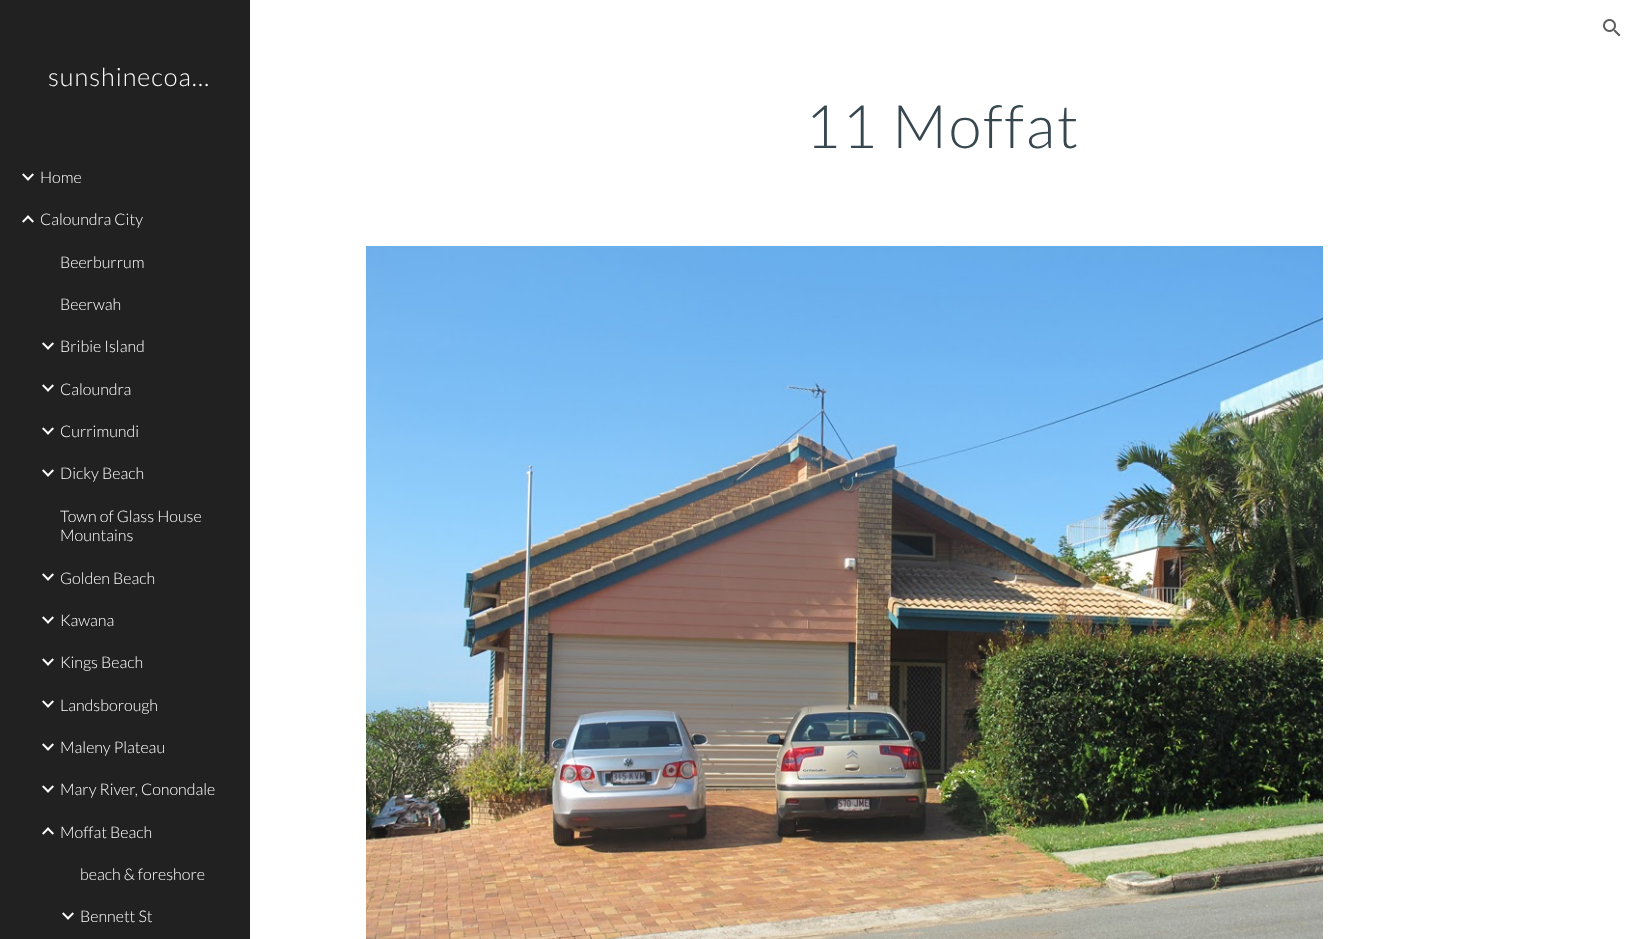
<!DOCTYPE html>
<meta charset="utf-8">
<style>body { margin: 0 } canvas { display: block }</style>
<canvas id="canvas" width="1636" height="939"></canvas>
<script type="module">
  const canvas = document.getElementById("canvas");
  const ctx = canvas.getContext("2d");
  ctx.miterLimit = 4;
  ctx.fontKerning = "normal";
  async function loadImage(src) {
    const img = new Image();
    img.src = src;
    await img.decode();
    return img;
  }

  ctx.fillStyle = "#ffffff";
  ctx.fillRect(0, 0, 1636, 939);
  ctx.drawImage(await loadImage("img1.png"), 1603, 19, 18, 18);
  ctx.fillStyle = "#212121";
  ctx.fillRect(0, 0, 250, 939);
  ctx.letterSpacing = "1px";
  ctx.font = "300 25.25px Lato";
  ctx.fillStyle = "#ffffff";
  ctx.fillText("sunshinecoa…", 48, 86);
  ctx.drawImage(await loadImage("img2.png"), 22, 173, 12, 8);
  ctx.letterSpacing = "0px";
  ctx.font = "300 16px Lato";
  ctx.fillText("Home", 40, 183);
  ctx.drawImage(await loadImage("img3.png"), 22, 215, 12, 8);
  ctx.fillText("Caloundra City", 40, 225);
  ctx.fillText("Beerburrum", 60, 268);
  ctx.fillText("Beerwah", 60, 310);
  ctx.drawImage(await loadImage("img2.png"), 42, 342, 12, 8);
  ctx.fillText("Bribie Island", 60, 352);
  ctx.drawImage(await loadImage("img2.png"), 42, 384, 12, 8);
  ctx.fillText("Caloundra", 60, 395);
  ctx.drawImage(await loadImage("img2.png"), 42, 427, 12, 8);
  ctx.fillText("Currimundi", 60, 437);
  ctx.drawImage(await loadImage("img2.png"), 42, 469, 12, 8);
  ctx.fillText("Dicky Beach", 60, 479);
  ctx.fillText("Town of Glass House", 60, 522);
  ctx.fillText("Mountains", 60, 541);
  ctx.drawImage(await loadImage("img2.png"), 42, 573, 12, 8);
  ctx.fillText("Golden Beach", 60, 584);
  ctx.drawImage(await loadImage("img2.png"), 42, 616, 12, 8);
  ctx.fillText("Kawana", 60, 626);
  ctx.drawImage(await loadImage("img2.png"), 42, 658, 12, 8);
  ctx.fillText("Kings Beach", 60, 668);
  ctx.drawImage(await loadImage("img2.png"), 42, 700, 12, 8);
  ctx.fillText("Landsborough", 60, 711);
  ctx.drawImage(await loadImage("img2.png"), 42, 743, 12, 8);
  ctx.fillText("Maleny Plateau", 60, 753);
  ctx.drawImage(await loadImage("img2.png"), 42, 785, 12, 8);
  ctx.fillText("Mary River, Conondale", 60, 795);
  ctx.drawImage(await loadImage("img3.png"), 42, 827, 12, 8);
  ctx.fillText("Moffat Beach", 60, 838);
  ctx.fillText("beach & foreshore", 80, 880);
  ctx.drawImage(await loadImage("img2.png"), 62, 912, 12, 8);
  ctx.fillText("Bennett St", 80, 922);
  ctx.letterSpacing = "2px";
  ctx.font = "300 60px Lato";
  ctx.fillStyle = "#37474f";
  ctx.fillText("11 Moffat", 805, 148);
  ctx.drawImage(await loadImage("img4.png"), 366, 246, 957, 693);
</script>
